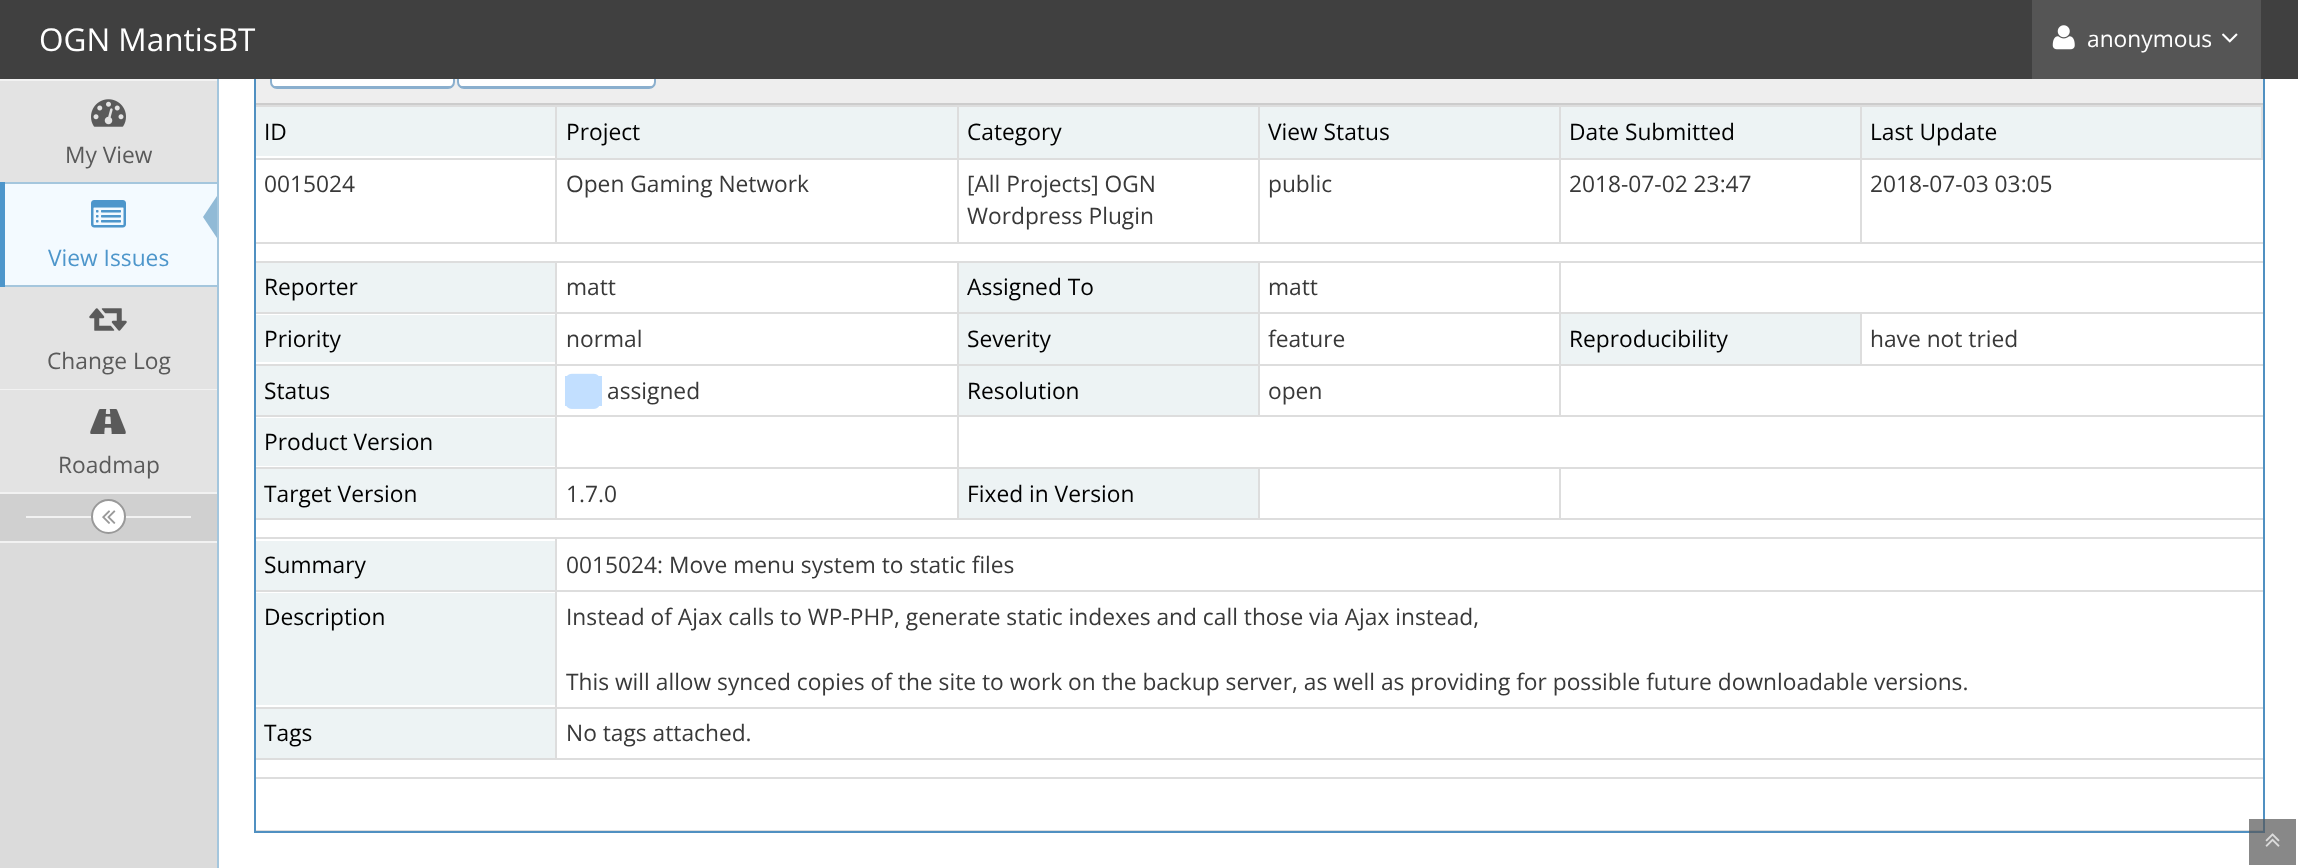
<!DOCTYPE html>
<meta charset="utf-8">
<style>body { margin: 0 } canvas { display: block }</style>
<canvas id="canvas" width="2298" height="868"></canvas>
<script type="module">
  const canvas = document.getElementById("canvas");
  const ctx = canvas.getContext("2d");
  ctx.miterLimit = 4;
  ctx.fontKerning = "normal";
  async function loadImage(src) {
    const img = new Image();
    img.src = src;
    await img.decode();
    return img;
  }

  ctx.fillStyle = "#ffffff";
  ctx.fillRect(0, 0, 2298, 868);
  ctx.strokeStyle = "#5090c1";
  ctx.lineWidth = 2;
  ctx.strokeRect(255, -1, 2009, 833);
  ctx.fillStyle = "#eeeeee";
  ctx.fillRect(256, 79, 2007, 24);
  ctx.fillStyle = "#ffffff";
  ctx.beginPath();
  ctx.moveTo(276, 40);
  ctx.lineTo(448, 40);
  ctx.bezierCurveTo(451, 40, 453, 43, 453, 46);
  ctx.lineTo(453, 82);
  ctx.bezierCurveTo(453, 84, 451, 86, 448, 86);
  ctx.lineTo(276, 86);
  ctx.bezierCurveTo(274, 86, 271, 84, 271, 82);
  ctx.lineTo(271, 46);
  ctx.bezierCurveTo(271, 43, 274, 40, 276, 40);
  ctx.closePath();
  ctx.fill();
  ctx.beginPath();
  ctx.roundRect(271, 40, 183, 48, 6);
  ctx.strokeStyle = "#8aafce";
  ctx.stroke();
  ctx.beginPath();
  ctx.moveTo(464, 40);
  ctx.lineTo(649, 40);
  ctx.bezierCurveTo(652, 40, 654, 43, 654, 46);
  ctx.lineTo(654, 82);
  ctx.bezierCurveTo(654, 84, 652, 86, 649, 86);
  ctx.lineTo(464, 86);
  ctx.bezierCurveTo(461, 86, 458, 84, 458, 82);
  ctx.lineTo(458, 46);
  ctx.bezierCurveTo(458, 43, 461, 40, 464, 40);
  ctx.closePath();
  ctx.fill();
  ctx.beginPath();
  ctx.roundRect(458, 40, 197, 48, 6);
  ctx.stroke();
  ctx.fillStyle = "#404040";
  ctx.fillRect(0, 0, 2298, 79);
  ctx.font = "31.5px Open Sans";
  ctx.fillStyle = "#ffffff";
  ctx.fillText("OGN MantisBT", 39, 51);
  ctx.fillStyle = "#555555";
  ctx.fillRect(2032, 0, 229, 79);
  ctx.drawImage(await loadImage("img1.png"), 2052, 25, 23, 25);
  ctx.font = "22.75px Open Sans";
  ctx.fillStyle = "#ffffff";
  ctx.fillText("anonymous", 2087, 47);
  ctx.drawImage(await loadImage("img2.png"), 2222, 33, 16, 10);
  ctx.fillStyle = "#dbdbdb";
  ctx.fillRect(0, 543, 217, 325);
  ctx.fillStyle = "#a4c6dd";
  ctx.fillRect(217, 79, 2, 789);
  ctx.fillStyle = "#f2f2f2";
  ctx.fillRect(0, 79, 217, 2);
  ctx.fillStyle = "#e3e3e3";
  ctx.fillRect(0, 81, 217, 101);
  ctx.drawImage(await loadImage("img3.png"), 91, 99, 35, 28);
  ctx.fillStyle = "#5a5a5a";
  ctx.fillText("My View", 65, 163);
  ctx.fillStyle = "#a4c6dd";
  ctx.fillRect(0, 182, 217, 2);
  ctx.fillRect(0, 285, 217, 2);
  ctx.fillStyle = "#4d96cb";
  ctx.fillRect(0, 182, 5, 105);
  ctx.fillStyle = "#f3faff";
  ctx.fillRect(5, 184, 212, 101);
  ctx.drawImage(await loadImage("img4.png"), 91, 200, 35, 28);
  ctx.fillStyle = "#91bad6";
  ctx.beginPath();
  ctx.moveTo(217, 196);
  ctx.lineTo(217, 238);
  ctx.lineTo(203, 217);
  ctx.closePath();
  ctx.fill();
  ctx.fillStyle = "#4d96cb";
  ctx.fillText("View Issues", 48, 266);
  ctx.fillStyle = "#e3e3e3";
  ctx.fillRect(0, 287, 217, 102);
  ctx.drawImage(await loadImage("img5.png"), 89, 308, 38, 23);
  ctx.fillStyle = "#5a5a5a";
  ctx.fillText("Change Log", 47, 369);
  ctx.fillStyle = "#f2f2f2";
  ctx.fillRect(0, 389, 217, 1);
  ctx.fillRect(0, 492, 217, 2);
  ctx.fillStyle = "#e3e3e3";
  ctx.fillRect(0, 390, 217, 102);
  ctx.drawImage(await loadImage("img6.png"), 90, 409, 36, 25);
  ctx.fillStyle = "#5a5a5a";
  ctx.fillText("Roadmap", 58, 473);
  ctx.fillStyle = "#d0d0d0";
  ctx.fillRect(0, 494, 217, 47);
  ctx.fillStyle = "#f2f2f2";
  ctx.fillRect(0, 541, 217, 2);
  ctx.fillRect(26, 516, 165, 2);
  ctx.fillStyle = "#ffffff";
  ctx.beginPath();
  ctx.arc(108.5, 516.5, 16.5, 0, Math.PI * 2);
  ctx.fill();
  ctx.strokeStyle = "#999999";
  ctx.stroke();
  ctx.drawImage(await loadImage("img7.png"), 102, 510, 14, 14);
  ctx.fillStyle = "#cccccc";
  ctx.fillRect(256, 103, 2007, 2);
  ctx.fillStyle = "#8aafce";
  ctx.fillRect(273, 86, 179, 2);
  ctx.fillRect(460, 86, 193, 2);
  ctx.fillStyle = "#edf3f4";
  ctx.fillRect(256, 107, 299, 49);
  ctx.fillStyle = "#dddddd";
  ctx.fillRect(1860, 105, 403, 2);
  ctx.fillRect(1860, 158, 403, 2);
  ctx.fillRect(256, 242, 2007, 2);
  ctx.fillRect(1860, 158, 2, 85);
  ctx.fillRect(1559, 158, 303, 2);
  ctx.fillRect(1860, 105, 2, 54);
  ctx.fillRect(1559, 105, 303, 2);
  ctx.fillRect(1559, 158, 2, 85);
  ctx.fillRect(1258, 158, 303, 2);
  ctx.fillRect(1559, 105, 2, 54);
  ctx.fillRect(1258, 105, 303, 2);
  ctx.fillRect(1258, 158, 2, 85);
  ctx.fillRect(957, 158, 303, 2);
  ctx.fillRect(1258, 105, 2, 54);
  ctx.fillRect(957, 105, 303, 2);
  ctx.fillRect(957, 158, 2, 85);
  ctx.fillRect(555, 158, 404, 2);
  ctx.fillRect(957, 105, 2, 54);
  ctx.fillRect(555, 105, 404, 2);
  ctx.fillRect(555, 158, 2, 85);
  ctx.fillRect(256, 158, 301, 2);
  ctx.fillRect(555, 105, 2, 54);
  ctx.fillRect(256, 105, 301, 2);
  ctx.fillStyle = "#000000";
  ctx.fillText("ID", 264, 140);
  ctx.fillStyle = "#edf3f4";
  ctx.fillRect(557, 107, 400, 51);
  ctx.fillStyle = "#000000";
  ctx.fillText("Project", 566, 140);
  ctx.fillStyle = "#edf3f4";
  ctx.fillRect(959, 107, 299, 51);
  ctx.fillStyle = "#000000";
  ctx.fillText("Category", 967, 140);
  ctx.fillStyle = "#edf3f4";
  ctx.fillRect(1260, 107, 299, 51);
  ctx.fillStyle = "#000000";
  ctx.fillText("View Status", 1268, 140);
  ctx.fillStyle = "#edf3f4";
  ctx.fillRect(1561, 107, 299, 51);
  ctx.fillStyle = "#000000";
  ctx.fillText("Date Submitted", 1569, 140);
  ctx.fillStyle = "#edf3f4";
  ctx.fillRect(1862, 107, 399, 51);
  ctx.fillStyle = "#dddddd";
  ctx.fillRect(2261, 105, 2, 54);
  ctx.fillStyle = "#000000";
  ctx.fillText("Last Update", 1870, 140);
  ctx.fillStyle = "#393939";
  ctx.fillText("0015024", 264, 192);
  ctx.fillText("Open Gaming Network", 566, 192);
  ctx.fillText("[All Projects] OGN", 967, 192);
  ctx.fillText("Wordpress Plugin", 967, 224);
  ctx.fillText("public", 1268, 192);
  ctx.fillText("2018-07-02 23:47", 1569, 192);
  ctx.fillText("2018-07-03 03:05", 1870, 192);
  ctx.fillStyle = "#edf3f4";
  ctx.fillRect(256, 263, 299, 49);
  ctx.fillStyle = "#dddddd";
  ctx.fillRect(1559, 261, 704, 2);
  ctx.fillRect(1860, 312, 403, 2);
  ctx.fillRect(1559, 364, 704, 2);
  ctx.fillRect(1860, 312, 2, 54);
  ctx.fillRect(1559, 312, 303, 2);
  ctx.fillRect(957, 415, 1306, 2);
  ctx.fillRect(1559, 364, 2, 53);
  ctx.fillRect(1258, 364, 303, 2);
  ctx.fillRect(1559, 312, 2, 54);
  ctx.fillRect(1258, 312, 303, 2);
  ctx.fillRect(1559, 261, 2, 52);
  ctx.fillRect(1258, 261, 303, 2);
  ctx.fillRect(1258, 364, 2, 53);
  ctx.fillRect(957, 364, 303, 2);
  ctx.fillRect(1258, 312, 2, 54);
  ctx.fillRect(957, 312, 303, 2);
  ctx.fillRect(1258, 261, 2, 52);
  ctx.fillRect(957, 261, 303, 2);
  ctx.fillRect(1559, 467, 704, 2);
  ctx.fillRect(256, 518, 2007, 2);
  ctx.fillRect(1559, 467, 2, 53);
  ctx.fillRect(1258, 467, 303, 2);
  ctx.fillRect(1258, 467, 2, 53);
  ctx.fillRect(957, 467, 303, 2);
  ctx.fillRect(957, 467, 2, 53);
  ctx.fillRect(555, 467, 404, 2);
  ctx.fillRect(957, 415, 2, 54);
  ctx.fillRect(555, 415, 404, 2);
  ctx.fillRect(957, 364, 2, 53);
  ctx.fillRect(555, 364, 404, 2);
  ctx.fillRect(957, 312, 2, 54);
  ctx.fillRect(555, 312, 404, 2);
  ctx.fillRect(957, 261, 2, 52);
  ctx.fillRect(555, 261, 404, 2);
  ctx.fillRect(555, 467, 2, 53);
  ctx.fillRect(256, 467, 301, 2);
  ctx.fillRect(555, 415, 2, 54);
  ctx.fillRect(256, 415, 301, 2);
  ctx.fillRect(555, 364, 2, 53);
  ctx.fillRect(256, 364, 301, 2);
  ctx.fillRect(555, 312, 2, 54);
  ctx.fillRect(256, 312, 301, 2);
  ctx.fillRect(555, 261, 2, 52);
  ctx.fillRect(256, 261, 301, 2);
  ctx.fillStyle = "#000000";
  ctx.fillText("Reporter", 264, 295);
  ctx.fillStyle = "#393939";
  ctx.fillText("matt", 566, 295);
  ctx.fillStyle = "#edf3f4";
  ctx.fillRect(959, 263, 299, 49);
  ctx.fillStyle = "#000000";
  ctx.fillText("Assigned To", 967, 295);
  ctx.fillStyle = "#393939";
  ctx.fillText("matt", 1268, 295);
  ctx.fillStyle = "#edf3f4";
  ctx.fillRect(256, 315, 299, 47);
  ctx.fillStyle = "#000000";
  ctx.fillText("Priority", 264, 347);
  ctx.fillStyle = "#393939";
  ctx.fillText("normal", 566, 347);
  ctx.fillStyle = "#edf3f4";
  ctx.fillRect(959, 314, 299, 50);
  ctx.fillStyle = "#000000";
  ctx.fillText("Severity", 967, 347);
  ctx.fillStyle = "#393939";
  ctx.fillText("feature", 1268, 347);
  ctx.fillStyle = "#edf3f4";
  ctx.fillRect(1561, 314, 299, 50);
  ctx.fillStyle = "#000000";
  ctx.fillText("Reproducibility", 1569, 347);
  ctx.fillStyle = "#393939";
  ctx.fillText("have not tried", 1870, 347);
  ctx.fillStyle = "#edf3f4";
  ctx.fillRect(256, 366, 299, 49);
  ctx.fillStyle = "#000000";
  ctx.fillText("Status", 264, 399);
  ctx.fillStyle = "#c2dfff";
  ctx.fillRect(565, 376, 37, 30);
  ctx.drawImage(await loadImage("img8.png"), 566, 373, 33, 36);
  ctx.fillStyle = "#393939";
  ctx.fillText("assigned", 607, 399);
  ctx.fillStyle = "#edf3f4";
  ctx.fillRect(959, 366, 299, 49);
  ctx.fillStyle = "#000000";
  ctx.fillText("Resolution", 967, 399);
  ctx.fillStyle = "#393939";
  ctx.fillText("open", 1268, 399);
  ctx.fillStyle = "#edf3f4";
  ctx.fillRect(256, 418, 299, 48);
  ctx.fillStyle = "#000000";
  ctx.fillText("Product Version", 264, 450);
  ctx.fillStyle = "#edf3f4";
  ctx.fillRect(256, 469, 299, 49);
  ctx.fillStyle = "#000000";
  ctx.fillText("Target Version", 264, 502);
  ctx.fillStyle = "#393939";
  ctx.fillText("1.7.0", 566, 502);
  ctx.fillStyle = "#edf3f4";
  ctx.fillRect(959, 469, 299, 49);
  ctx.fillStyle = "#000000";
  ctx.fillText("Fixed in Version", 967, 502);
  ctx.fillStyle = "#edf3f4";
  ctx.fillRect(256, 541, 299, 49);
  ctx.fillStyle = "#dddddd";
  ctx.fillRect(555, 537, 1708, 2);
  ctx.fillRect(555, 590, 1708, 2);
  ctx.fillRect(555, 707, 1708, 2);
  ctx.fillRect(256, 758, 2007, 2);
  ctx.fillRect(555, 707, 2, 53);
  ctx.fillRect(256, 707, 301, 2);
  ctx.fillRect(555, 590, 2, 119);
  ctx.fillRect(256, 590, 301, 2);
  ctx.fillRect(555, 537, 2, 55);
  ctx.fillRect(256, 537, 301, 2);
  ctx.fillStyle = "#000000";
  ctx.fillText("Summary", 264, 573);
  ctx.fillStyle = "#393939";
  ctx.fillText("0015024: Move menu system to static files", 566, 573);
  ctx.fillStyle = "#edf3f4";
  ctx.fillRect(256, 593, 299, 112);
  ctx.fillStyle = "#000000";
  ctx.fillText("Description", 264, 625);
  ctx.fillStyle = "#393939";
  ctx.fillText("Instead of Ajax calls to WP-PHP, generate static indexes and call those via Ajax instead,", 566, 625);
  ctx.fillText("This will allow synced copies of the site to work on the backup server, as well as providing for possible future downloadable versions.", 566, 690);
  ctx.fillStyle = "#edf3f4";
  ctx.fillRect(256, 709, 299, 49);
  ctx.fillStyle = "#000000";
  ctx.fillText("Tags", 264, 741);
  ctx.fillStyle = "#393939";
  ctx.fillText("No tags attached.", 566, 741);
  ctx.fillStyle = "#dddddd";
  ctx.fillRect(256, 777, 2007, 2);
  ctx.fillRect(256, 830, 2007, 1);
  ctx.fillStyle = "rgba(85, 85, 85, 0.7)";
  ctx.fillRect(2249, 819, 47, 46);
  ctx.drawImage(await loadImage("img9.png"), 2265, 833, 15, 14);
</script>
